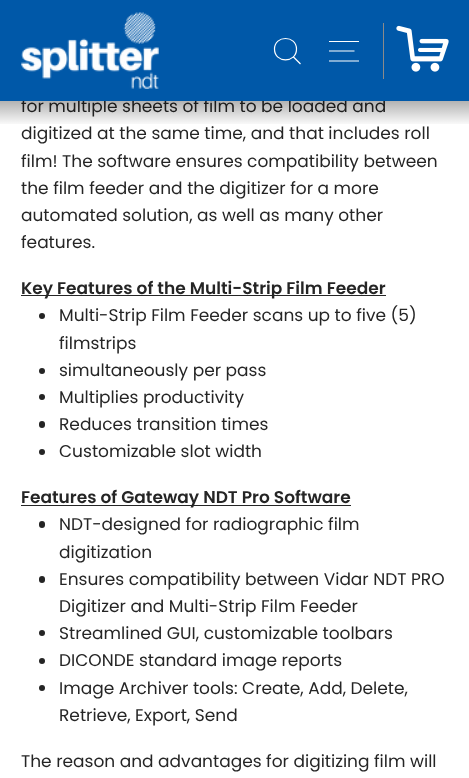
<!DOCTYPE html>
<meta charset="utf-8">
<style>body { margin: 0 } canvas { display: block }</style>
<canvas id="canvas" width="469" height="778"></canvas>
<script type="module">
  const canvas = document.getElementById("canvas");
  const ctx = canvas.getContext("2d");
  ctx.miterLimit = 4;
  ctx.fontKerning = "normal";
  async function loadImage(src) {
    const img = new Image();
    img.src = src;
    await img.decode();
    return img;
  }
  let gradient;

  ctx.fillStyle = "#ffffff";
  ctx.fillRect(0, 0, 469, 778);
  ctx.font = "17px Poppins";
  ctx.fillStyle = "#252525";
  ctx.fillText("for multiple sheets of film to be loaded and", 21, 112);
  ctx.fillStyle = "#0058a8";
  ctx.fillRect(0, 0, 469, 101);
  ctx.drawImage(await loadImage("img1.png"), 21, 12, 138, 77);
  ctx.beginPath();
  ctx.moveTo(296.5, 49);
  ctx.bezierCurveTo(296.5, 63.5, 274.5, 63.5, 274.5, 49);
  ctx.bezierCurveTo(274.5, 35, 296.5, 35, 296.5, 49);
  ctx.closePath();
  ctx.moveTo(300.5, 64);
  ctx.lineTo(293.5, 57);
  ctx.strokeStyle = "#ffffff";
  ctx.lineWidth = 1.2;
  ctx.stroke();
  ctx.beginPath();
  ctx.moveTo(329, 41.5);
  ctx.lineTo(359, 41.5);
  ctx.moveTo(329, 51);
  ctx.lineTo(354.5, 51);
  ctx.moveTo(329, 61);
  ctx.lineTo(359, 61);
  ctx.stroke();
  ctx.fillStyle = "#8a8a8a";
  ctx.fillRect(383, 23, 1, 56);
  ctx.drawImage(await loadImage("img2.png"), 396, 25, 53, 47);
  gradient = ctx.createLinearGradient(235, 101, 235, 126);
  gradient.addColorStop(0, "rgba(0, 0, 0, 0.3)");
  gradient.addColorStop(1, "rgba(0, 0, 0, 0)");
  ctx.fillStyle = gradient;
  ctx.fillRect(0, 101, 469, 23);
  ctx.fillStyle = "#252525";
  ctx.fillText("digitized at the same time, and that includes roll", 21, 139);
  ctx.fillText("film! The software ensures compatibility between", 21, 167);
  ctx.fillText("the film feeder and the digitizer for a more", 21, 194);
  ctx.fillText("automated solution, as well as many other", 21, 221);
  ctx.fillText("features.", 21, 248);
  ctx.fillRect(21, 295, 365, 1);
  ctx.font = "600 17px Poppins";
  ctx.fillText("Key Features of the Multi-Strip Film Feeder", 21, 294);
  ctx.beginPath();
  ctx.arc(42, 316, 3, 0, Math.PI * 2);
  ctx.fill();
  ctx.font = "17px Poppins";
  ctx.fillText("Multi-Strip Film Feeder scans up to five (5)", 59, 321);
  ctx.fillText("filmstrips", 59, 349);
  ctx.beginPath();
  ctx.arc(42, 371, 3, 0, Math.PI * 2);
  ctx.fill();
  ctx.fillText("simultaneously per pass", 59, 376);
  ctx.beginPath();
  ctx.arc(42, 397, 3, 0, Math.PI * 2);
  ctx.fill();
  ctx.fillText("Multiplies productivity", 59, 403);
  ctx.beginPath();
  ctx.roundRect(39, 421, 6, 7, 3);
  ctx.fill();
  ctx.fillText("Reduces transition times", 59, 430);
  ctx.beginPath();
  ctx.arc(42, 452, 3, 0, Math.PI * 2);
  ctx.fill();
  ctx.fillText("Customizable slot width", 59, 457);
  ctx.fillRect(21, 505, 330, 1);
  ctx.font = "600 17px Poppins";
  ctx.fillText("Features of Gateway NDT Pro Software", 21, 503);
  ctx.beginPath();
  ctx.roundRect(39, 521, 6, 7, 3);
  ctx.fill();
  ctx.font = "17px Poppins";
  ctx.fillText("NDT-designed for radiographic film", 59, 530);
  ctx.fillText("digitization", 59, 558);
  ctx.beginPath();
  ctx.roundRect(39, 576, 6, 7, 3);
  ctx.fill();
  ctx.fillText("Ensures compatibility between Vidar NDT PRO", 59, 585);
  ctx.fillText("Digitizer and Multi-Strip Film Feeder", 59, 612);
  ctx.beginPath();
  ctx.arc(42, 633, 3, 0, Math.PI * 2);
  ctx.fill();
  ctx.fillText("Streamlined GUI, customizable toolbars", 59, 639);
  ctx.beginPath();
  ctx.arc(42, 661, 3, 0, Math.PI * 2);
  ctx.fill();
  ctx.fillText("DICONDE standard image reports", 59, 666);
  ctx.beginPath();
  ctx.arc(42, 688, 3, 0, Math.PI * 2);
  ctx.fill();
  ctx.fillText("Image Archiver tools: Create, Add, Delete,", 59, 694);
  ctx.fillText("Retrieve, Export, Send", 59, 721);
  ctx.fillText("The reason and advantages for digitizing film will", 21, 767);
</script>
